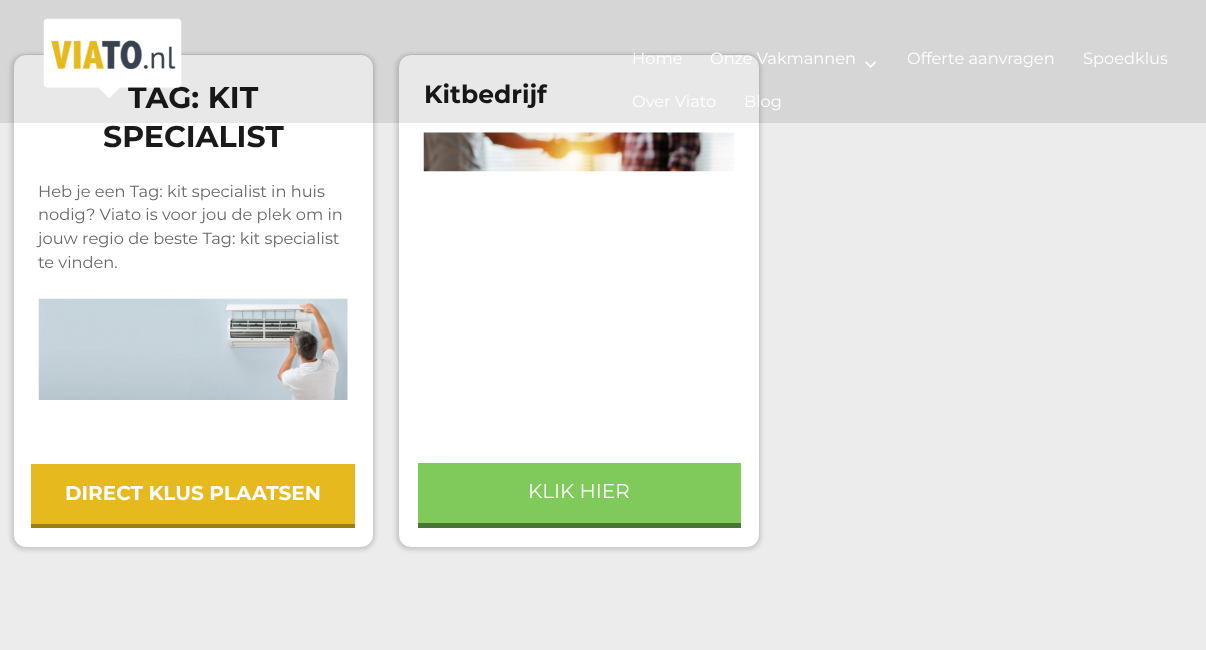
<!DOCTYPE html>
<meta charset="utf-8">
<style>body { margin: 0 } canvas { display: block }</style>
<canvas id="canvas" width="1206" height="650"></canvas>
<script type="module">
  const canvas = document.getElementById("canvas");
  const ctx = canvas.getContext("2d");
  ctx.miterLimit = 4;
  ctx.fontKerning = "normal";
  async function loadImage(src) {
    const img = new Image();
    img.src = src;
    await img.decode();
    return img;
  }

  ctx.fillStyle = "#ececec";
  ctx.fillRect(0, 0, 1206, 650);
  ctx.fillStyle = "rgba(0, 0, 0, 0.15)";
  ctx.filter = "blur(2px)";
  ctx.beginPath();
  ctx.roundRect(11, 54, 364, 496, 14);
  ctx.fill();
  ctx.filter = "none";
  ctx.fillStyle = "#ffffff";
  ctx.beginPath();
  ctx.roundRect(13.5, 54.5, 360, 493, 12.5);
  ctx.fill();
  ctx.strokeStyle = "#cccccc";
  ctx.stroke();
  ctx.font = "bold 30px Montserrat";
  ctx.fillStyle = "#1a1a1a";
  ctx.fillText("TAG: KIT", 128, 108);
  ctx.fillText("SPECIALIST", 103, 147);
  ctx.font = "16.25px Montserrat";
  ctx.fillStyle = "#686868";
  ctx.fillText("Heb je een Tag: kit specialist in huis", 38, 197);
  ctx.fillText("nodig? Viato is voor jou de plek om in", 38, 220);
  ctx.fillText("jouw regio de beste Tag: kit specialist", 38, 244);
  ctx.fillText("te vinden.", 38, 268);
  ctx.drawImage(await loadImage("img1.png"), 38, 298, 310, 102);
  ctx.fillStyle = "#e6b91f";
  ctx.fillRect(31, 464, 324, 60);
  ctx.fillStyle = "#9c7e18";
  ctx.fillRect(31, 524, 324, 4);
  ctx.font = "bold 20px Montserrat";
  ctx.fillStyle = "#ffffff";
  ctx.fillText("DIRECT KLUS PLAATSEN", 65, 500);
  ctx.fillStyle = "rgba(0, 0, 0, 0.15)";
  ctx.filter = "blur(2px)";
  ctx.beginPath();
  ctx.roundRect(396, 54, 365, 496, 14);
  ctx.fill();
  ctx.filter = "none";
  ctx.fillStyle = "#ffffff";
  ctx.beginPath();
  ctx.roundRect(398.5, 54.5, 361, 493, 12.5);
  ctx.fill();
  ctx.stroke();
  ctx.font = "bold 25px Montserrat";
  ctx.fillStyle = "#1a1a1a";
  ctx.fillText("Kitbedrijf", 424, 103);
  ctx.drawImage(await loadImage("img2.png"), 423, 132, 311, 40);
  ctx.fillStyle = "#7fca5b";
  ctx.fillRect(418, 463, 323, 60);
  ctx.fillStyle = "#497534";
  ctx.fillRect(418, 523, 323, 5);
  ctx.font = "20px Montserrat";
  ctx.fillStyle = "#ffffff";
  ctx.fillText("KLIK HIER", 528, 498);
  ctx.fillStyle = "rgba(0, 0, 0, 0.09)";
  ctx.fillRect(0, 0, 1206, 123);
  ctx.drawImage(await loadImage("img3.png"), 43, 18, 139, 80);
  ctx.font = "16.25px Montserrat";
  ctx.fillStyle = "#ffffff";
  ctx.fillText("Home", 632, 64);
  ctx.fillText("Onze Vakmannen", 710, 64);
  ctx.drawImage(await loadImage("img4.png"), 865, 61, 11, 7);
  ctx.fillText("Offerte aanvragen", 907, 64);
  ctx.fillText("Spoedklus", 1083, 64);
  ctx.fillText("Over Viato", 632, 107);
  ctx.fillText("Blog", 744, 107);
</script>
